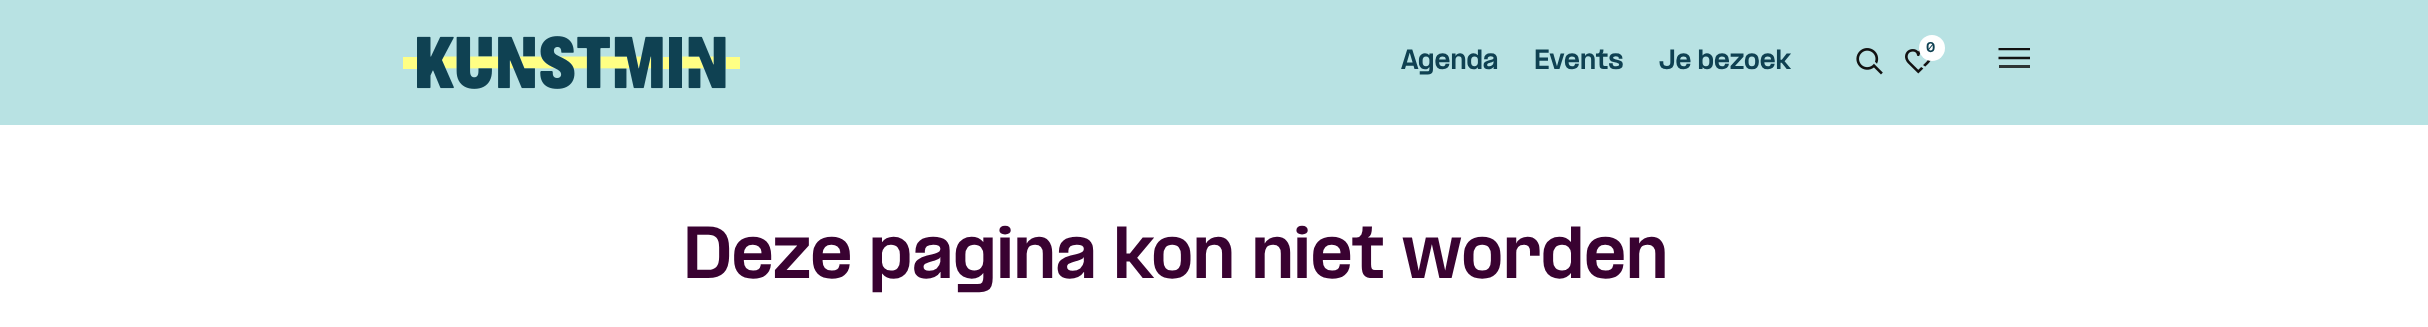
<!DOCTYPE html>
<meta charset="utf-8">
<style>body { margin: 0 } canvas { display: block }</style>
<canvas id="canvas" width="2428" height="327"></canvas>
<script type="module">
  const canvas = document.getElementById("canvas");
  const ctx = canvas.getContext("2d");
  ctx.miterLimit = 4;
  ctx.fontKerning = "normal";
  async function loadImage(src) {
    const img = new Image();
    img.src = src;
    await img.decode();
    return img;
  }

  ctx.fillStyle = "#ffffff";
  ctx.fillRect(0, 0, 2428, 327);
  ctx.fillStyle = "#b8e2e3";
  ctx.fillRect(0, 0, 2428, 125);
  ctx.drawImage(await loadImage("img1.png"), 403, 36, 337, 53);
  ctx.font = "800 23.75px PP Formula";
  ctx.fillStyle = "#0f4152";
  ctx.fillText("Agenda", 1401, 69);
  ctx.fillText("Events", 1534, 69);
  ctx.fillText("Je bezoek", 1659, 69);
  ctx.drawImage(await loadImage("img2.png"), 1856, 48, 27, 27);
  ctx.drawImage(await loadImage("img3.png"), 1905, 49, 26, 25);
  ctx.fillStyle = "#ffffff";
  ctx.beginPath();
  ctx.arc(1932, 48, 13, 0, Math.PI * 2);
  ctx.fill();
  ctx.font = "800 12px PP Formula";
  ctx.fillStyle = "#0f4152";
  ctx.fillText("0", 1926, 52);
  ctx.save();
  ctx.beginPath();
  ctx.rect(1998, 48, 32, 21);
  ctx.clip();
  ctx.beginPath();
  ctx.moveTo(1998.5, 49);
  ctx.lineTo(2030, 49);
  ctx.strokeStyle = "#121212";
  ctx.lineWidth = 2.5;
  ctx.stroke();
  ctx.restore();
  ctx.beginPath();
  ctx.moveTo(1998.5, 58);
  ctx.lineTo(2030, 58);
  ctx.strokeStyle = "#121212";
  ctx.lineWidth = 2.5;
  ctx.stroke();
  ctx.fillStyle = "#2e3535";
  ctx.fillRect(1999, 65, 31, 3);
  ctx.font = "800 62.5px PP Formula";
  ctx.fillStyle = "#390231";
  ctx.fillText("Deze pagina kon niet worden", 683, 278);
</script>
